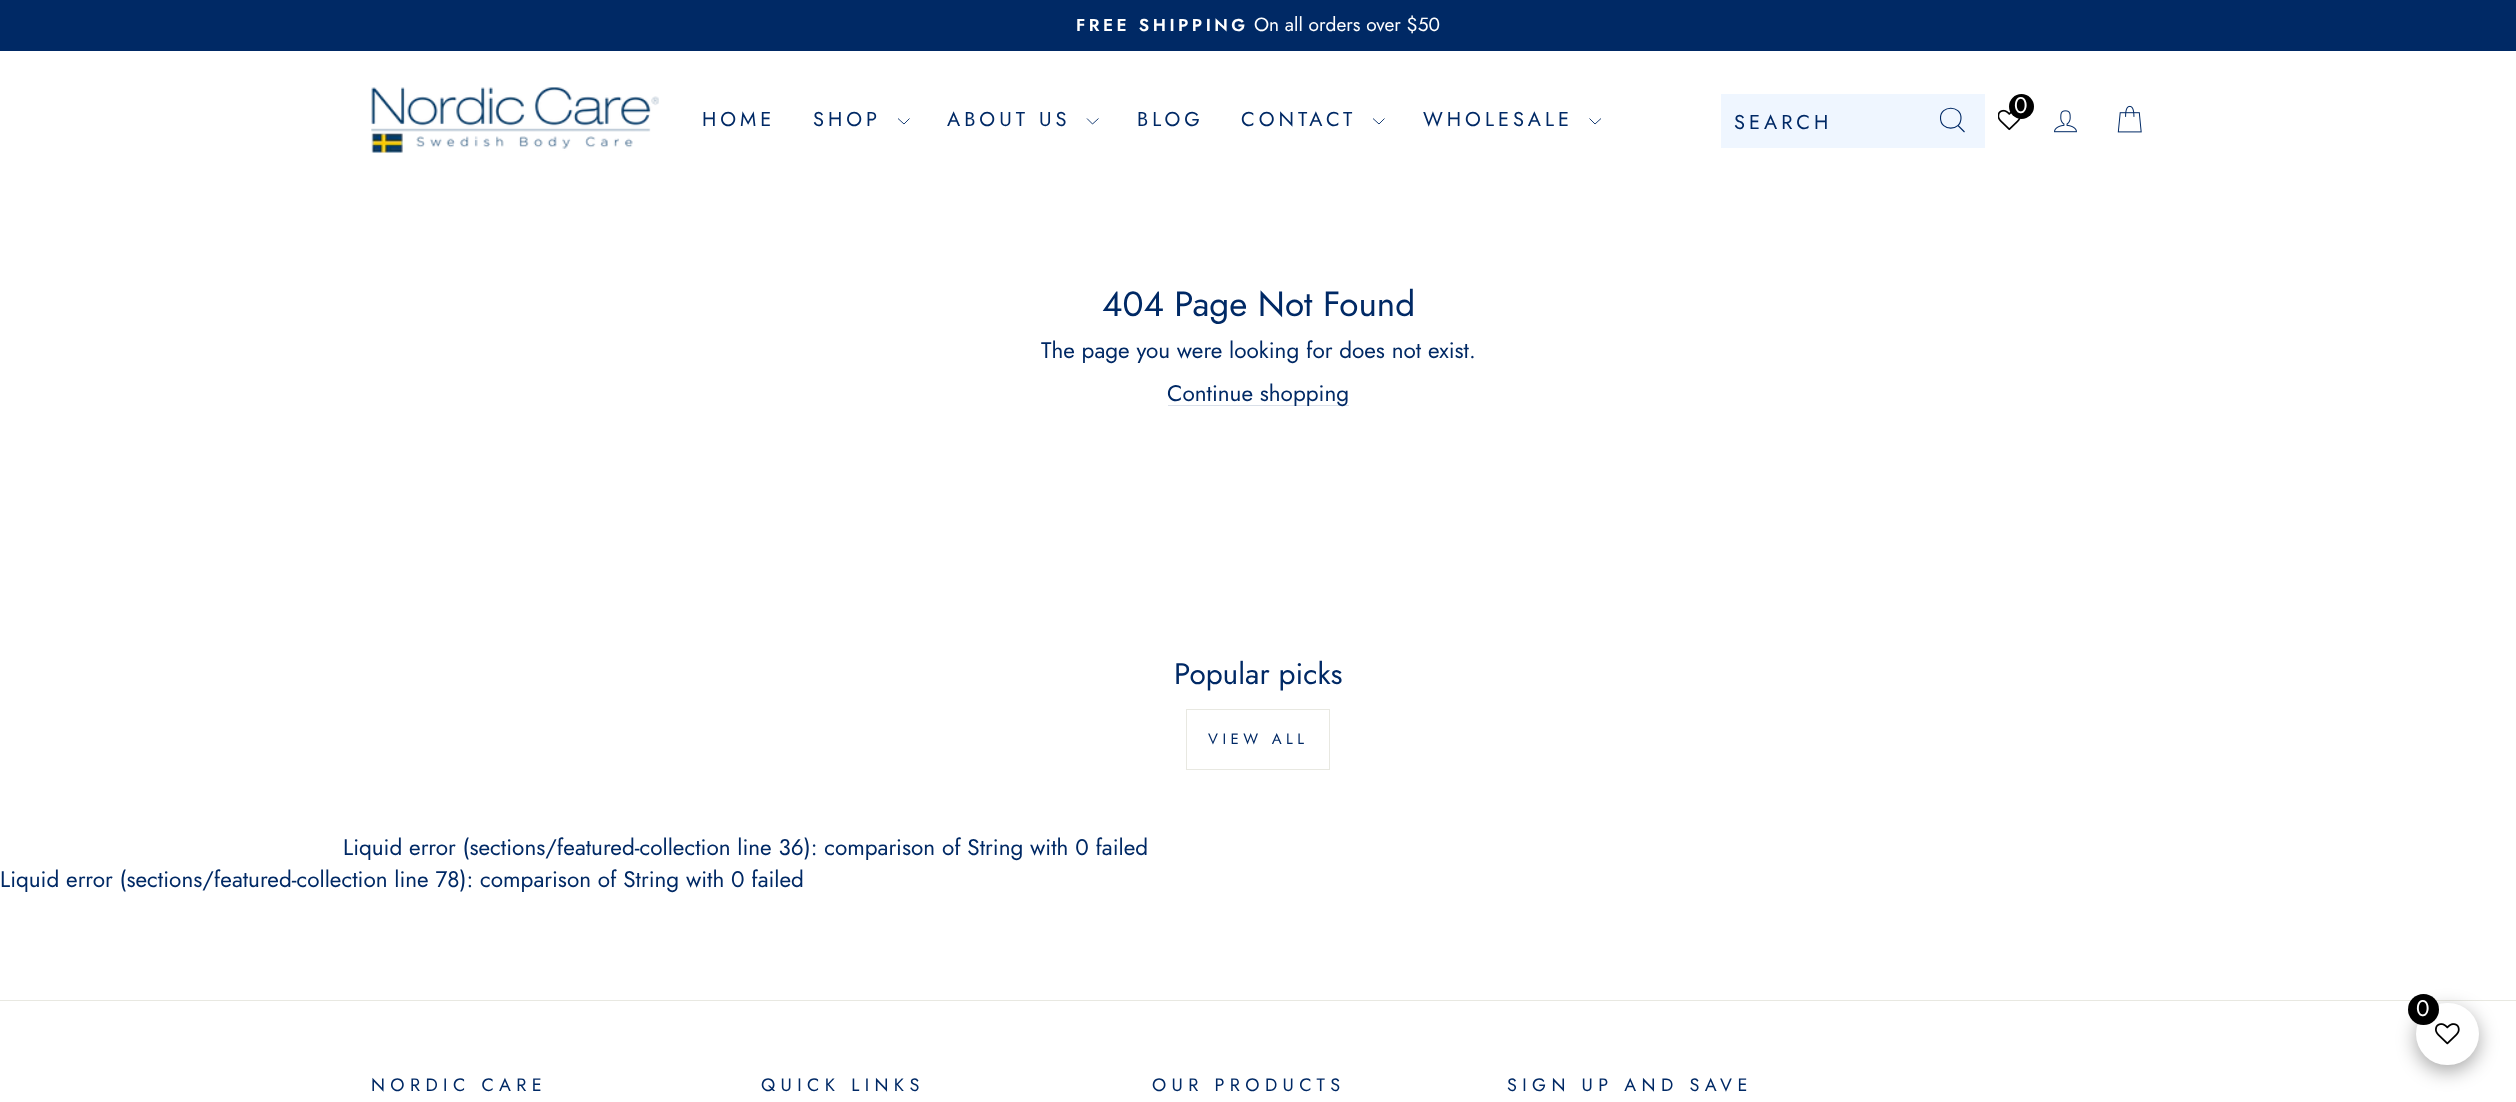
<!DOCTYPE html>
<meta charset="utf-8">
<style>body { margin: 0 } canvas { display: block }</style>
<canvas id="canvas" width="2516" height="1102"></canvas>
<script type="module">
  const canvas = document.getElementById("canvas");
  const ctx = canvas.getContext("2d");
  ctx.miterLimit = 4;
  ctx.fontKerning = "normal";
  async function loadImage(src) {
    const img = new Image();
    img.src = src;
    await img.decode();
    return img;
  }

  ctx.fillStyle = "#ffffff";
  ctx.fillRect(0, 0, 2516, 1102);
  ctx.fillStyle = "#002965";
  ctx.fillRect(0, 0, 2516, 51);
  ctx.letterSpacing = "3.5px";
  ctx.font = "600 17.25px Jost";
  ctx.fillStyle = "#ffffff";
  ctx.fillText("FREE SHIPPING", 1076, 31);
  ctx.letterSpacing = "0px";
  ctx.font = "19.1px Jost";
  ctx.fillText("On all orders over $50", 1254, 31);
  ctx.drawImage(await loadImage("img1.png"), 371, 87, 288, 66);
  ctx.letterSpacing = "4px";
  ctx.font = "20px Jost";
  ctx.fillStyle = "#002965";
  ctx.fillText("HOME", 702, 126);
  ctx.fillText("SHOP", 813, 126);
  ctx.beginPath();
  ctx.moveTo(898, 118.5);
  ctx.lineTo(904, 124);
  ctx.lineTo(909.5, 118.5);
  ctx.strokeStyle = "#002965";
  ctx.lineWidth = 0.9;
  ctx.stroke();
  ctx.fillText("ABOUT US", 947, 126);
  ctx.beginPath();
  ctx.moveTo(1087, 118.5);
  ctx.lineTo(1092.5, 124);
  ctx.lineTo(1098.5, 118.5);
  ctx.stroke();
  ctx.fillText("BLOG", 1137, 126);
  ctx.fillText("CONTACT", 1241, 126);
  ctx.beginPath();
  ctx.moveTo(1373, 118.5);
  ctx.lineTo(1379, 124);
  ctx.lineTo(1384.5, 118.5);
  ctx.stroke();
  ctx.fillText("WHOLESALE", 1423, 126);
  ctx.beginPath();
  ctx.moveTo(1589.5, 118.5);
  ctx.lineTo(1595, 124);
  ctx.lineTo(1601, 118.5);
  ctx.stroke();
  ctx.fillStyle = "#eff6ff";
  ctx.fillRect(1721, 94, 264, 54);
  ctx.fillStyle = "#002965";
  ctx.fillText("SEARCH", 1734, 129);
  ctx.beginPath();
  ctx.moveTo(1961, 118);
  ctx.bezierCurveTo(1961, 131.5, 1940.5, 131.5, 1940.5, 118);
  ctx.bezierCurveTo(1940.5, 105, 1961, 105, 1961, 118);
  ctx.closePath();
  ctx.moveTo(1964.5, 132);
  ctx.lineTo(1958, 125.5);
  ctx.lineWidth = 1.1;
  ctx.stroke();
  ctx.drawImage(await loadImage("img2.png"), 1998, 109, 23, 22);
  ctx.fillStyle = "#000000";
  ctx.beginPath();
  ctx.arc(2021.5, 106.5, 12.5, 0, Math.PI * 2);
  ctx.fill();
  ctx.letterSpacing = "0px";
  ctx.font = "22.5px Jost";
  ctx.fillStyle = "#ffffff";
  ctx.fillText("0", 2014, 113);
  ctx.drawImage(await loadImage("img3.png"), 2054, 110, 23, 23);
  ctx.drawImage(await loadImage("img4.png"), 2117, 105, 25, 28);
  ctx.font = "35px Jost";
  ctx.fillStyle = "#002965";
  ctx.fillText("404 Page Not Found", 1102, 316);
  ctx.font = "22.5px Jost";
  ctx.fillText("The page you were looking for does not exist.", 1041, 358);
  ctx.fillStyle = "#d9dfe8";
  ctx.fillRect(1168, 405, 181, 1);
  ctx.fillStyle = "#002965";
  ctx.fillText("Continue shopping", 1167, 401);
  ctx.font = "29.75px Jost";
  ctx.fillText("Popular picks", 1174, 684);
  ctx.strokeStyle = "#e8e8e1";
  ctx.lineWidth = 1;
  ctx.strokeRect(1186.5, 709.5, 143, 60);
  ctx.letterSpacing = "4.5px";
  ctx.font = "15px Jost";
  ctx.fillText("VIEW ALL", 1208, 744);
  ctx.letterSpacing = "0px";
  ctx.font = "22.5px Jost";
  ctx.fillText("Liquid error (sections/featured-collection line 36): comparison of String with 0 failed", 343, 855);
  ctx.fillText("Liquid error (sections/featured-collection line 78): comparison of String with 0 failed", 0, 887);
  ctx.fillStyle = "#e8e8e1";
  ctx.fillRect(0, 1000, 2516, 1);
  ctx.letterSpacing = "5.4px";
  ctx.font = "18px Jost";
  ctx.fillStyle = "#002965";
  ctx.fillText("NORDIC CARE", 371, 1091);
  ctx.fillText("QUICK LINKS", 761, 1091);
  ctx.fillText("OUR PRODUCTS", 1152, 1091);
  ctx.fillText("SIGN UP AND SAVE", 1507, 1091);
  ctx.fillStyle = "rgba(0, 0, 0, 0.35)";
  ctx.filter = "blur(9.5px)";
  ctx.beginPath();
  ctx.roundRect(2416, 1009, 63, 62, 31);
  ctx.fill();
  ctx.filter = "none";
  ctx.fillStyle = "#ffffff";
  ctx.beginPath();
  ctx.roundRect(2416, 1003, 63, 62, 31);
  ctx.fill();
  ctx.drawImage(await loadImage("img5.png"), 2435, 1023, 25, 22);
  ctx.fillStyle = "#000000";
  ctx.beginPath();
  ctx.arc(2423.5, 1009.5, 15.5, 0, Math.PI * 2);
  ctx.fill();
  ctx.letterSpacing = "0px";
  ctx.font = "22.5px Jost";
  ctx.fillStyle = "#ffffff";
  ctx.fillText("0", 2416, 1016);
</script>
